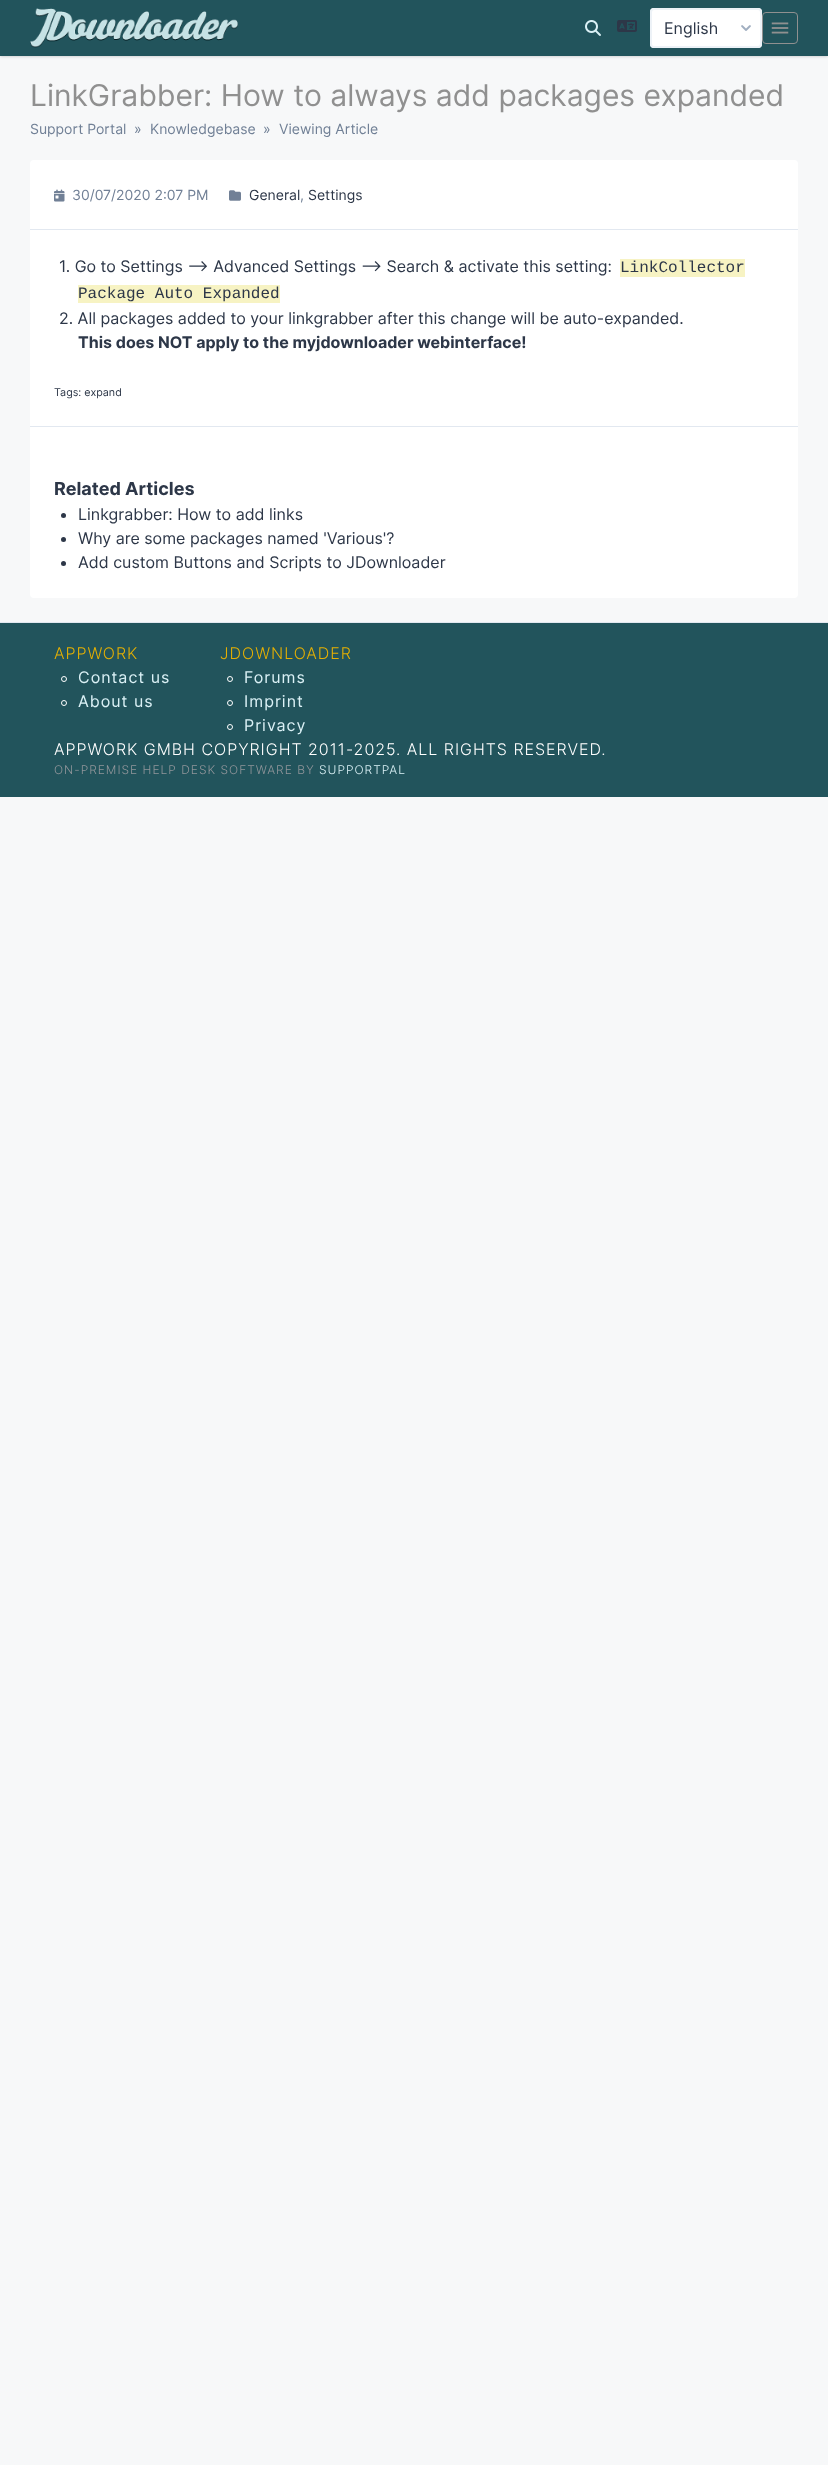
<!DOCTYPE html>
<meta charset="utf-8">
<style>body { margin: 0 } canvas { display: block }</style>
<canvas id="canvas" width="828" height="2465"></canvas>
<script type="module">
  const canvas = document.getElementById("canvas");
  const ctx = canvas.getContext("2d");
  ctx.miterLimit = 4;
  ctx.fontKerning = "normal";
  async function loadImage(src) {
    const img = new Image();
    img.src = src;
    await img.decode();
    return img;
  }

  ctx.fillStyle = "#f7f8f9";
  ctx.fillRect(0, 0, 828, 2465);
  ctx.fillStyle = "rgba(0, 0, 0, 0.1)";
  ctx.filter = "blur(1px)";
  ctx.beginPath();
  ctx.rect(1, 2, 826, 54);
  ctx.fill();
  ctx.filter = "none";
  ctx.filter = "blur(1.5px)";
  ctx.beginPath();
  ctx.rect(0, 1, 828, 56);
  ctx.fill();
  ctx.filter = "none";
  ctx.fillStyle = "#22545c";
  ctx.fillRect(0, 0, 828, 56);
  ctx.drawImage(await loadImage("img1.png"), 30, 8, 208, 40);
  ctx.drawImage(await loadImage("img2.png"), 585, 20, 16, 16);
  ctx.drawImage(await loadImage("img3.png"), 617, 20, 20, 12);
  ctx.fillStyle = "#ffffff";
  ctx.beginPath();
  ctx.roundRect(650, 8, 112, 40, 4);
  ctx.fill();
  ctx.drawImage(await loadImage("img4.png"), 741, 25, 10, 6);
  ctx.beginPath();
  ctx.roundRect(651, 9, 110, 38, 3);
  ctx.strokeStyle = "#edf2f7";
  ctx.lineWidth = 2;
  ctx.stroke();
  ctx.font = "16px Inter";
  ctx.fillStyle = "#2d3748";
  ctx.fillText("English", 664, 34);
  ctx.beginPath();
  ctx.roundRect(762.5, 12.5, 35, 31, 3.5);
  ctx.strokeStyle = "#909090";
  ctx.lineWidth = 1;
  ctx.stroke();
  ctx.drawImage(await loadImage("img5.png"), 771, 22, 18, 12);
  ctx.font = "30px Inter";
  ctx.fillStyle = "#909090";
  ctx.fillText("LinkGrabber: How to always add packages expanded", 30, 106);
  ctx.font = "14px Inter";
  ctx.fillStyle = "#718096";
  ctx.fillText("Support Portal", 30, 134);
  ctx.fillText("»", 134, 134);
  ctx.fillText("Knowledgebase", 150, 134);
  ctx.fillText("»", 263, 134);
  ctx.fillText("Viewing Article", 279, 134);
  ctx.fillStyle = "#ffffff";
  ctx.beginPath();
  ctx.roundRect(30, 160, 768, 438, 4);
  ctx.fill();
  ctx.drawImage(await loadImage("img6.png"), 54, 189, 11, 13);
  ctx.fillStyle = "#718096";
  ctx.fillText("30/07/2020 2:07 PM", 72, 200);
  ctx.drawImage(await loadImage("img7.png"), 229, 190, 12, 11);
  ctx.fillStyle = "#2d3748";
  ctx.fillText("General", 249, 200);
  ctx.fillStyle = "#718096";
  ctx.fillText(",", 300, 200);
  ctx.fillStyle = "#2d3748";
  ctx.fillText("Settings", 308, 200);
  ctx.fillStyle = "#e2e8f0";
  ctx.fillRect(30, 229, 768, 1);
  ctx.font = "16px Inter";
  ctx.fillStyle = "#2d3748";
  ctx.fillText("1. Go to Settings --> Advanced Settings --> Search & activate this setting:", 59, 272);
  ctx.fillStyle = "#f7f3c3";
  ctx.fillRect(620, 259, 125, 18);
  ctx.font = "16px Liberation Mono";
  ctx.fillStyle = "#2d3748";
  ctx.fillText("LinkCollector", 620, 272);
  ctx.fillStyle = "#f7f3c3";
  ctx.fillRect(78, 285, 202, 18);
  ctx.fillStyle = "#2d3748";
  ctx.fillText("Package Auto Expanded", 78, 298);
  ctx.font = "16px Inter";
  ctx.fillText("2. All packages added to your linkgrabber after this change will be auto-expanded.", 59, 324);
  ctx.font = "bold 16px Inter";
  ctx.fillText("This does NOT apply to the myjdownloader webinterface!", 78, 348);
  ctx.font = "10.75px Inter";
  ctx.fillText("Tags: expand", 54, 396);
  ctx.fillStyle = "#e2e8f0";
  ctx.fillRect(30, 426, 768, 1);
  ctx.font = "bold 18px Inter";
  ctx.fillStyle = "#2d3748";
  ctx.fillText("Related Articles", 54, 495);
  ctx.beginPath();
  ctx.arc(63.5, 515.5, 2.5, 0, Math.PI * 2);
  ctx.fill();
  ctx.font = "16px Inter";
  ctx.fillText("Linkgrabber: How to add links", 78, 520);
  ctx.beginPath();
  ctx.arc(63.5, 539.5, 2.5, 0, Math.PI * 2);
  ctx.fill();
  ctx.fillText("Why are some packages named 'Various'?", 78, 544);
  ctx.beginPath();
  ctx.arc(63.5, 563.5, 2.5, 0, Math.PI * 2);
  ctx.fill();
  ctx.fillText("Add custom Buttons and Scripts to JDownloader", 78, 568);
  ctx.fillStyle = "#22545c";
  ctx.fillRect(0, 623, 828, 174);
  ctx.fillStyle = "#e2e8f0";
  ctx.fillRect(0, 622, 828, 1);
  ctx.letterSpacing = "1px";
  ctx.font = "300 16px Inter";
  ctx.fillStyle = "#e6b002";
  ctx.fillText("APPWORK", 54, 659);
  ctx.beginPath();
  ctx.arc(64, 679, 2.5, 0, Math.PI * 2);
  ctx.strokeStyle = "#ffffff";
  ctx.stroke();
  ctx.font = "16px Inter";
  ctx.fillStyle = "#dbf1f6";
  ctx.fillText("Contact us", 78, 683);
  ctx.beginPath();
  ctx.arc(64, 703, 2.5, 0, Math.PI * 2);
  ctx.stroke();
  ctx.fillText("About us", 78, 707);
  ctx.font = "300 16px Inter";
  ctx.fillStyle = "#e6b002";
  ctx.fillText("JDOWNLOADER", 220, 659);
  ctx.beginPath();
  ctx.arc(230, 679, 2.5, 0, Math.PI * 2);
  ctx.stroke();
  ctx.font = "16px Inter";
  ctx.fillStyle = "#dbf1f6";
  ctx.fillText("Forums", 244, 683);
  ctx.beginPath();
  ctx.arc(230, 703, 2.5, 0, Math.PI * 2);
  ctx.stroke();
  ctx.fillText("Imprint", 244, 707);
  ctx.beginPath();
  ctx.arc(230, 727, 2.5, 0, Math.PI * 2);
  ctx.stroke();
  ctx.fillText("Privacy", 244, 731);
  ctx.font = "300 16px Inter";
  ctx.fillStyle = "#ffffff";
  ctx.fillText("APPWORK GMBH COPYRIGHT 2011-2025. ALL RIGHTS RESERVED.", 54, 755);
  ctx.font = "300 12px Inter";
  ctx.fillStyle = "#92969b";
  ctx.fillText("ON-PREMISE HELP DESK SOFTWARE BY", 54, 774);
  ctx.fillStyle = "#dbf1f6";
  ctx.fillText("SUPPORTPAL", 319, 774);
</script>
